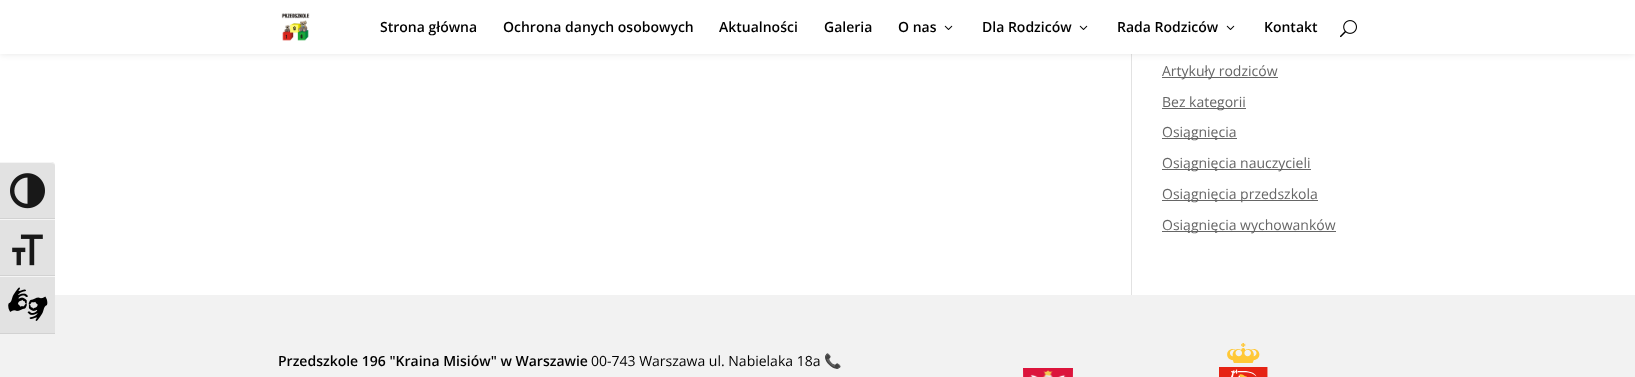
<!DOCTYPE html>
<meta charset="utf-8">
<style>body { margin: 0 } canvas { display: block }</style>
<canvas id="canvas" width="1635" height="377"></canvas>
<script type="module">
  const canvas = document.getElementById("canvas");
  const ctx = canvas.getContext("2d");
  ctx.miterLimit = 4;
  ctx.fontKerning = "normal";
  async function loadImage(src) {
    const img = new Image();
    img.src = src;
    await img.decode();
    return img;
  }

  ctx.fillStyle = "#ffffff";
  ctx.fillRect(0, 0, 1635, 377);
  ctx.fillStyle = "#e2e2e2";
  ctx.fillRect(1131, 54, 1, 241);
  ctx.fillStyle = "rgba(0, 0, 0, 0.1)";
  ctx.filter = "blur(3.5px)";
  ctx.beginPath();
  ctx.rect(0, 0, 1635, 54);
  ctx.fill();
  ctx.filter = "none";
  ctx.fillStyle = "#ffffff";
  ctx.fillRect(0, 0, 1635, 54);
  ctx.drawImage(await loadImage("img1.png"), 281, 13, 29, 28);
  ctx.font = "600 14px Open Sans";
  ctx.fillStyle = "#000000";
  ctx.fillText("Strona główna", 380, 32);
  ctx.fillText("Ochrona danych osobowych", 503, 32);
  ctx.fillText("Aktualności", 719, 32);
  ctx.fillText("Galeria", 824, 32);
  ctx.fillText("O nas", 898, 32);
  ctx.drawImage(await loadImage("img2.png"), 944, 25, 9, 5);
  ctx.fillText("Dla Rodziców", 982, 32);
  ctx.drawImage(await loadImage("img2.png"), 1079, 25, 9, 5);
  ctx.fillText("Rada Rodziców", 1117, 32);
  ctx.drawImage(await loadImage("img2.png"), 1226, 25, 9, 5);
  ctx.fillText("Kontakt", 1264, 32);
  ctx.drawImage(await loadImage("img3.png"), 1340, 20, 17, 18);
  ctx.fillStyle = "#e2e2e2";
  ctx.beginPath();
  ctx.roundRect(0, 162, 55, 57, [0, 4, 0, 0]);
  ctx.fill();
  ctx.fillStyle = "#f5f5f5";
  ctx.beginPath();
  ctx.moveTo(0, 162);
  ctx.lineTo(0, 163);
  ctx.lineTo(51, 163);
  ctx.bezierCurveTo(53, 163, 55, 164, 55, 166);
  ctx.bezierCurveTo(55, 164, 53, 162, 51, 162);
  ctx.closePath();
  ctx.fill();
  ctx.fillStyle = "#d2d2d2";
  ctx.fillRect(0, 218, 55, 1);
  ctx.drawImage(await loadImage("img4.png"), 10, 173, 35, 36);
  ctx.fillStyle = "#e2e2e2";
  ctx.fillRect(0, 220, 55, 55);
  ctx.fillStyle = "#f5f5f5";
  ctx.fillRect(0, 219, 55, 1);
  ctx.fillStyle = "#d2d2d2";
  ctx.fillRect(0, 275, 55, 1);
  ctx.drawImage(await loadImage("img5.png"), 12, 234, 31, 32);
  ctx.fillStyle = "#f2f2f2";
  ctx.fillRect(0, 295, 1635, 82);
  ctx.fillStyle = "#e2e2e2";
  ctx.fillRect(0, 277, 55, 56);
  ctx.fillStyle = "#f5f5f5";
  ctx.fillRect(0, 276, 55, 1);
  ctx.fillStyle = "#d2d2d2";
  ctx.fillRect(0, 333, 55, 1);
  ctx.drawImage(await loadImage("img6.png"), 8, 287, 40, 34);
  ctx.fillStyle = "#666666";
  ctx.fillRect(1162, 77, 116, 1);
  ctx.font = "14px Open Sans";
  ctx.fillText("Artykuły rodziców", 1162, 76);
  ctx.fillRect(1162, 108, 84, 1);
  ctx.fillText("Bez kategorii", 1162, 107);
  ctx.fillRect(1162, 138, 75, 1);
  ctx.fillText("Osiągnięcia", 1162, 137);
  ctx.fillRect(1162, 169, 149, 1);
  ctx.fillText("Osiągnięcia nauczycieli", 1162, 168);
  ctx.fillRect(1162, 200, 156, 1);
  ctx.fillText("Osiągnięcia przedszkola", 1162, 199);
  ctx.fillRect(1162, 231, 174, 1);
  ctx.fillText("Osiągnięcia wychowanków", 1162, 230);
  ctx.font = "600 14px Open Sans";
  ctx.fillStyle = "#000000";
  ctx.fillText("Przedszkole 196 \"Kraina Misiów\" w Warszawie", 278, 366);
  ctx.font = "14px Open Sans";
  ctx.fillText("00-743 Warszawa ul. Nabielaka 18a", 591, 366);
  ctx.font = "14px Noto Color Emoji";
  ctx.fillText("📞", 824, 366);
  ctx.drawImage(await loadImage("img7.png"), 1219, 343, 49, 34);
  ctx.drawImage(await loadImage("img8.png"), 1023, 368, 50, 9);
</script>
